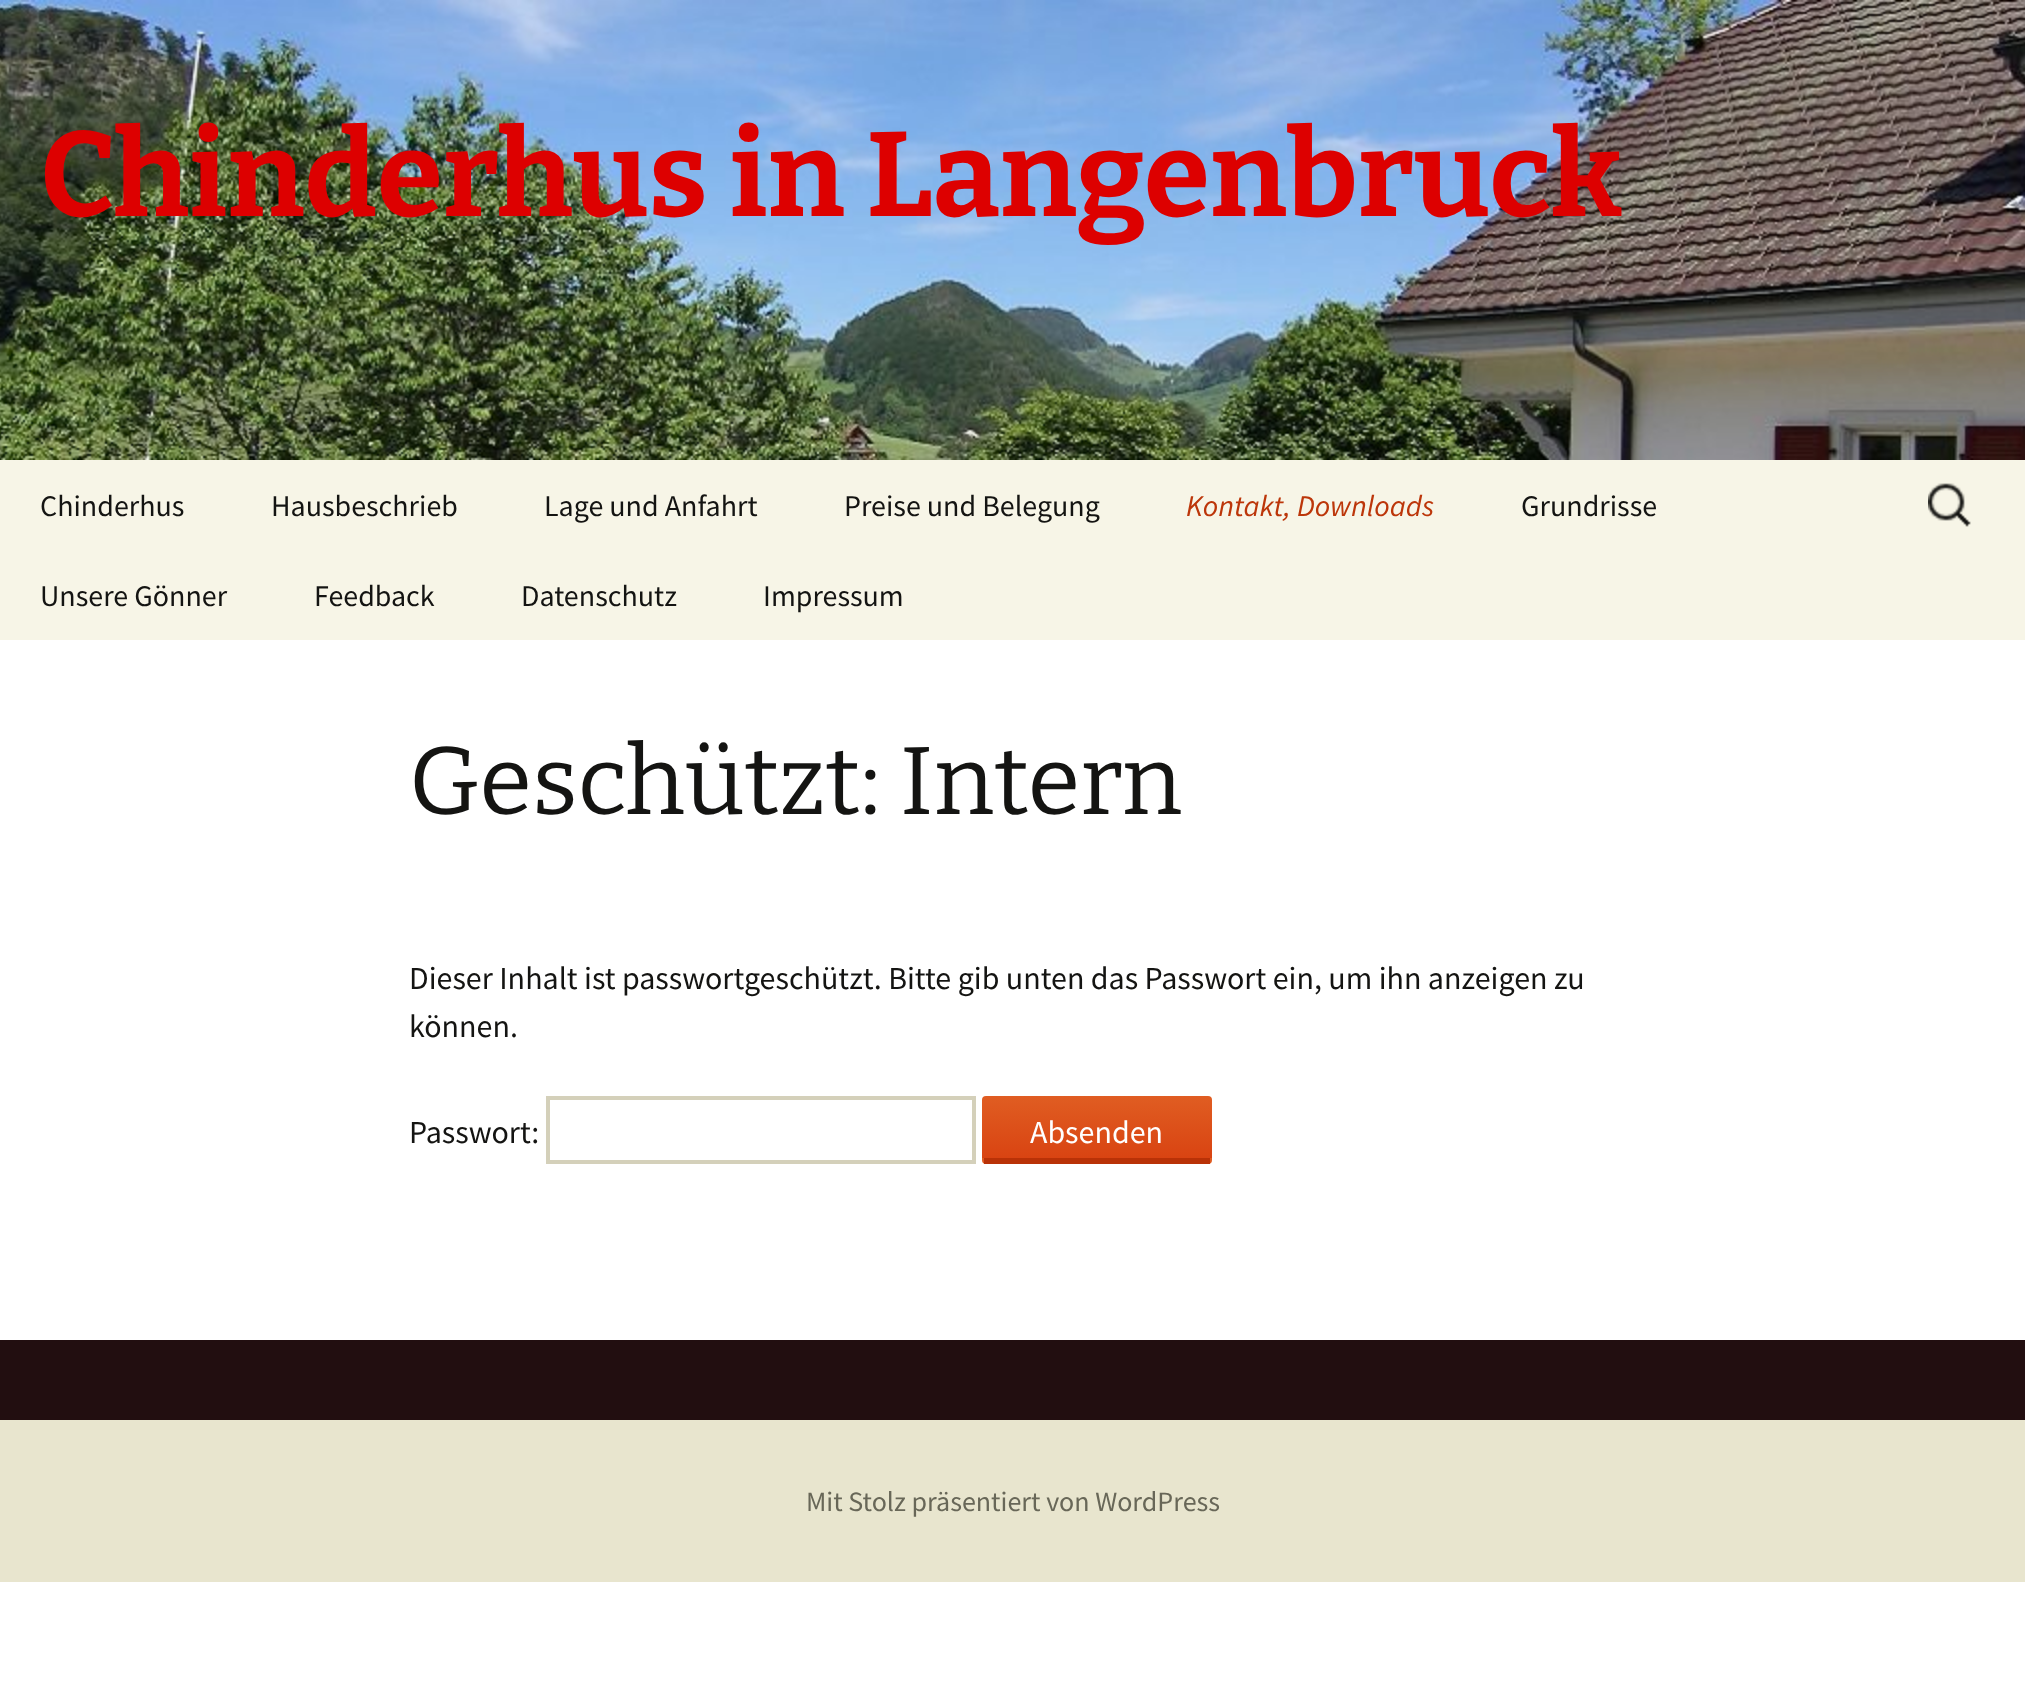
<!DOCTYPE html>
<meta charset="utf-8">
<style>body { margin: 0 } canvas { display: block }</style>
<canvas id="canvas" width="2025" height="1684"></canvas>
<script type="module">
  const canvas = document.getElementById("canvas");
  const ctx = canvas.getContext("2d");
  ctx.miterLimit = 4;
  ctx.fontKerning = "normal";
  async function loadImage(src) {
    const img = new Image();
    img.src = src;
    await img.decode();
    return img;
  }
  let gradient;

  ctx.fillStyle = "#ffffff";
  ctx.fillRect(0, 0, 2025, 1684);
  ctx.drawImage(await loadImage("img1.png"), 0, 0, 2025, 460);
  ctx.font = "100 120px Bitter";
  ctx.fillStyle = "#dd0000";
  ctx.fillText("Chinderhus in Langenbruck", 40, 216);
  ctx.fillStyle = "#f7f5e7";
  ctx.fillRect(0, 460, 2025, 180);
  ctx.font = "30px Source Sans Pro";
  ctx.fillStyle = "#141412";
  ctx.fillText("Chinderhus", 40, 516);
  ctx.fillText("Hausbeschrieb", 271, 516);
  ctx.fillText("Lage und Anfahrt", 544, 516);
  ctx.fillText("Preise und Belegung", 844, 516);
  ctx.font = "italic 30px Source Sans Pro";
  ctx.fillStyle = "#bc360a";
  ctx.fillText("Kontakt, Downloads", 1186, 516);
  ctx.font = "30px Source Sans Pro";
  ctx.fillStyle = "#141412";
  ctx.fillText("Grundrisse", 1521, 516);
  ctx.fillText("Unsere Gönner", 40, 606);
  ctx.fillText("Feedback", 314, 606);
  ctx.fillText("Datenschutz", 521, 606);
  ctx.fillText("Impressum", 763, 606);
  ctx.drawImage(await loadImage("img2.png"), 1928, 483, 43, 44);
  ctx.font = "100 96px 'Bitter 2'";
  ctx.fillText("Geschützt: Intern", 409, 814);
  ctx.font = "32px Source Sans Pro";
  ctx.fillText("Dieser Inhalt ist passwortgeschützt. Bitte gib unten das Passwort ein, um ihn anzeigen zu", 409, 989);
  ctx.fillText("können.", 409, 1037);
  ctx.fillText("Passwort:", 409, 1143);
  ctx.strokeStyle = "#d4d0ba";
  ctx.lineWidth = 4;
  ctx.strokeRect(548, 1098, 426, 64);
  gradient = ctx.createLinearGradient(1097, 1096, 1097, 1158);
  gradient.addColorStop(0, "#e05d22");
  gradient.addColorStop(1, "#d94412");
  ctx.fillStyle = gradient;
  ctx.beginPath();
  ctx.roundRect(982, 1096, 230, 62, [4, 4, 0, 0]);
  ctx.fill();
  gradient = ctx.createLinearGradient(1097, 1158, 1097, 1220);
  gradient.addColorStop(0, "#e05d22");
  gradient.addColorStop(1, "#d94412");
  ctx.fillStyle = gradient;
  ctx.beginPath();
  ctx.roundRect(982, 1158, 230, 6, [0, 0, 4, 4]);
  ctx.fill();
  ctx.fillStyle = "#b93207";
  ctx.fillRect(984, 1158, 226, 6);
  ctx.fillStyle = "#ffffff";
  ctx.fillText("Absenden", 1030, 1143);
  ctx.fillStyle = "#e8e5ce";
  ctx.fillRect(0, 1420, 2025, 162);
  ctx.fillStyle = "#220e10";
  ctx.fillRect(0, 1340, 2025, 80);
  ctx.font = "28px Source Sans Pro";
  ctx.fillStyle = "#686758";
  ctx.fillText("Mit Stolz präsentiert von WordPress", 806, 1511);
</script>
